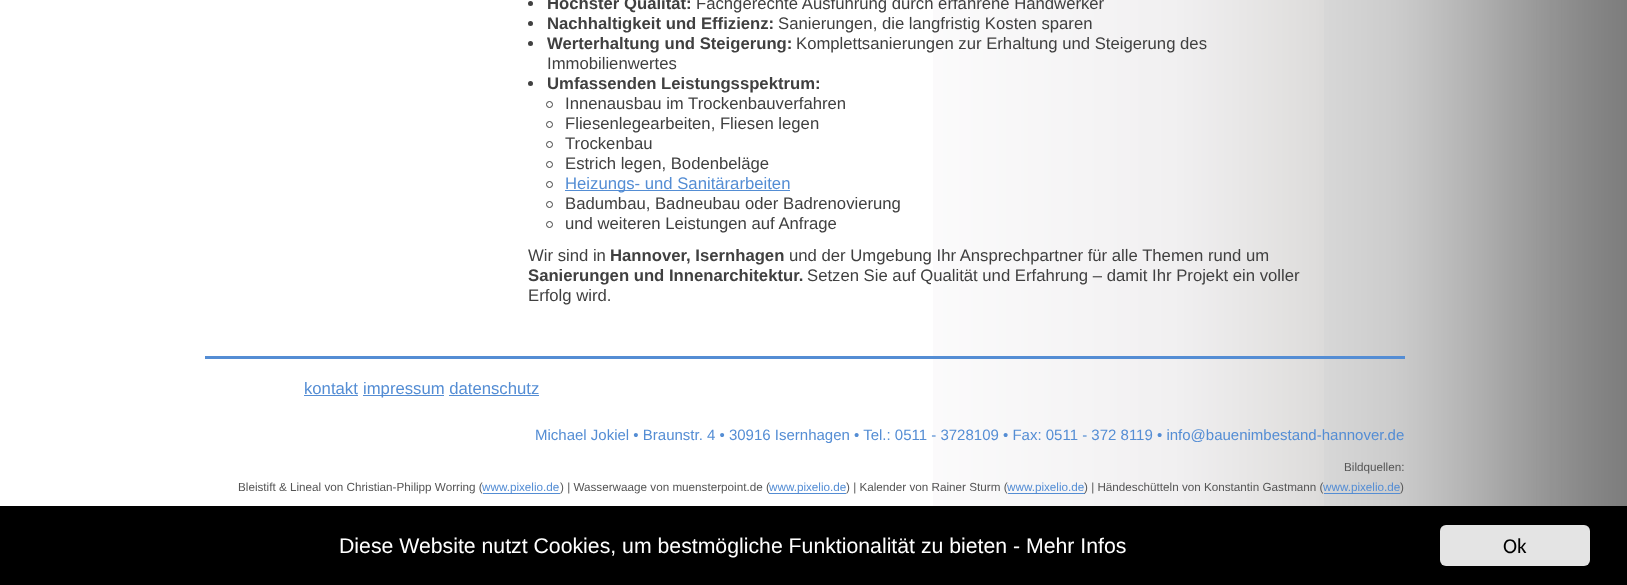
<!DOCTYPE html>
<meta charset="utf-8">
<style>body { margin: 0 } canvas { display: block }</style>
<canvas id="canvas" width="1627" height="585"></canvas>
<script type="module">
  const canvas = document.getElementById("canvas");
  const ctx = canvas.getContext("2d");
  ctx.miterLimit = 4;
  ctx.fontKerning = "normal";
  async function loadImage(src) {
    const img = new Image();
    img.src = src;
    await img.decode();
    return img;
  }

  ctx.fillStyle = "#ffffff";
  ctx.fillRect(0, 0, 1627, 585);
  ctx.drawImage(await loadImage("img1.png"), 1324, 0, 303, 506);
  ctx.drawImage(await loadImage("img2.png"), 933, 0, 391, 506);
  ctx.fillStyle = "#404040";
  ctx.beginPath();
  ctx.arc(530.5, 3.5, 2.5, 0, Math.PI * 2);
  ctx.fill();
  ctx.font = "bold 16.7px Liberation Sans";
  ctx.fillText("Höchster Qualität:", 547, 9);
  ctx.font = "16.7px Liberation Sans";
  ctx.fillText("Fachgerechte Ausführung durch erfahrene Handwerker", 696, 9);
  ctx.beginPath();
  ctx.arc(530.5, 23.5, 2.5, 0, Math.PI * 2);
  ctx.fill();
  ctx.font = "bold 16.7px Liberation Sans";
  ctx.fillText("Nachhaltigkeit und Effizienz:", 547, 29);
  ctx.font = "16.7px Liberation Sans";
  ctx.fillText("Sanierungen, die langfristig Kosten sparen", 778, 29);
  ctx.beginPath();
  ctx.arc(530.5, 43.5, 2.5, 0, Math.PI * 2);
  ctx.fill();
  ctx.font = "bold 16.7px Liberation Sans";
  ctx.fillText("Werterhaltung und Steigerung:", 547, 49);
  ctx.font = "16.7px Liberation Sans";
  ctx.fillText("Komplettsanierungen zur Erhaltung und Steigerung des", 796, 49);
  ctx.fillText("Immobilienwertes", 547, 69);
  ctx.beginPath();
  ctx.arc(530.5, 83.5, 2.5, 0, Math.PI * 2);
  ctx.fill();
  ctx.font = "bold 16.7px Liberation Sans";
  ctx.fillText("Umfassenden Leistungsspektrum:", 547, 89);
  ctx.beginPath();
  ctx.arc(549.5, 104.5, 3, 0, Math.PI * 2);
  ctx.strokeStyle = "#404040";
  ctx.stroke();
  ctx.font = "16.7px Liberation Sans";
  ctx.fillText("Innenausbau im Trockenbauverfahren", 565, 109);
  ctx.beginPath();
  ctx.arc(549.5, 124.5, 3, 0, Math.PI * 2);
  ctx.stroke();
  ctx.fillText("Fliesenlegearbeiten, Fliesen legen", 565, 129);
  ctx.beginPath();
  ctx.arc(549.5, 144.5, 3, 0, Math.PI * 2);
  ctx.stroke();
  ctx.fillText("Trockenbau", 565, 149);
  ctx.beginPath();
  ctx.arc(549.5, 164.5, 3, 0, Math.PI * 2);
  ctx.stroke();
  ctx.fillText("Estrich legen, Bodenbeläge", 565, 169);
  ctx.beginPath();
  ctx.arc(549.5, 184.5, 3, 0, Math.PI * 2);
  ctx.stroke();
  ctx.fillStyle = "#548dd4";
  ctx.fillRect(565, 190, 225, 1);
  ctx.fillText("Heizungs- und Sanitärarbeiten", 565, 189);
  ctx.beginPath();
  ctx.arc(549.5, 204.5, 3, 0, Math.PI * 2);
  ctx.stroke();
  ctx.fillStyle = "#404040";
  ctx.fillText("Badumbau, Badneubau oder Badrenovierung", 565, 209);
  ctx.beginPath();
  ctx.arc(549.5, 224.5, 3, 0, Math.PI * 2);
  ctx.stroke();
  ctx.fillText("und weiteren Leistungen auf Anfrage", 565, 229);
  ctx.fillText("Wir sind in", 528, 261);
  ctx.font = "bold 16.7px Liberation Sans";
  ctx.fillText("Hannover, Isernhagen", 610, 261);
  ctx.font = "16.7px Liberation Sans";
  ctx.fillText("und der Umgebung Ihr Ansprechpartner für alle Themen rund um", 789, 261);
  ctx.font = "bold 16.7px Liberation Sans";
  ctx.fillText("Sanierungen und Innenarchitektur.", 528, 281);
  ctx.font = "16.7px Liberation Sans";
  ctx.fillText("Setzen Sie auf Qualität und Erfahrung – damit Ihr Projekt ein voller", 807, 281);
  ctx.fillText("Erfolg wird.", 528, 301);
  ctx.fillStyle = "#548dd4";
  ctx.fillRect(205, 356, 1200, 3);
  ctx.fillText("kontakt", 304, 394);
  ctx.fillRect(304, 395, 54, 1);
  ctx.fillRect(363, 395, 81, 1);
  ctx.fillText("impressum datenschutz", 363, 394);
  ctx.fillRect(449, 395, 90, 1);
  ctx.font = "15px Liberation Sans";
  ctx.fillText("Michael Jokiel • Braunstr. 4 • 30916 Isernhagen • Tel.: 0511 - 3728109 • Fax: 0511 - 372 8119 • info@bauenimbestand-hannover.de", 535, 440);
  ctx.font = "11.7px Liberation Sans";
  ctx.fillStyle = "#555555";
  ctx.fillText("Bildquellen:", 1344, 471);
  ctx.fillText("Bleistift & Lineal von Christian-Philipp Worring (", 238, 491);
  ctx.fillStyle = "#548dd4";
  ctx.fillRect(483, 493, 77, 1);
  ctx.fillText("www.pixelio.de", 482, 491);
  ctx.fillStyle = "#555555";
  ctx.fillText(") | Wasserwaage von muensterpoint.de (", 560, 491);
  ctx.fillStyle = "#548dd4";
  ctx.fillRect(769, 493, 77, 1);
  ctx.fillText("www.pixelio.de", 769, 491);
  ctx.fillStyle = "#555555";
  ctx.fillText(") | Kalender von Rainer Sturm (", 846, 491);
  ctx.fillStyle = "#548dd4";
  ctx.fillRect(1008, 493, 77, 1);
  ctx.fillText("www.pixelio.de", 1007, 491);
  ctx.fillStyle = "#555555";
  ctx.fillText(") | Händeschütteln von Konstantin Gastmann (", 1084, 491);
  ctx.fillStyle = "#548dd4";
  ctx.fillRect(1324, 493, 76, 1);
  ctx.fillText("www.pixelio.de", 1323, 491);
  ctx.fillStyle = "#555555";
  ctx.fillText(")", 1400, 491);
  ctx.fillStyle = "#000000";
  ctx.fillRect(0, 506, 1627, 79);
  ctx.font = "21.25px Liberation Sans";
  ctx.fillStyle = "#ffffff";
  ctx.fillText("Diese Website nutzt Cookies, um bestmögliche Funktionalität zu bieten - Mehr Infos", 339, 553);
  ctx.fillStyle = "#e4e4e4";
  ctx.beginPath();
  ctx.roundRect(1440, 525, 150, 41, 6);
  ctx.fill();
  ctx.font = "21.25px Carlito";
  ctx.fillStyle = "#000000";
  ctx.fillText("Ok", 1503, 553);
</script>
